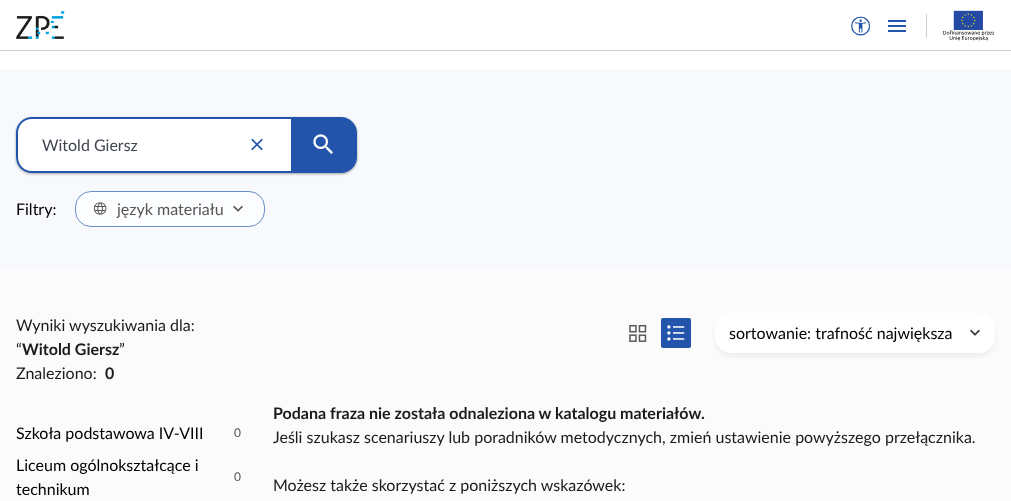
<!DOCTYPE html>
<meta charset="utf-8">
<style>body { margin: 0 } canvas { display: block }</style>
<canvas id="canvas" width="1011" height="501"></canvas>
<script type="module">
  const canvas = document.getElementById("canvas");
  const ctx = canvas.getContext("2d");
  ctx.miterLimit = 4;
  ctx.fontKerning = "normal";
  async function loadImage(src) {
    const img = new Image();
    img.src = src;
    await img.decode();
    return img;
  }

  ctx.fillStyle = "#ffffff";
  ctx.fillRect(0, 0, 1011, 501);
  ctx.drawImage(await loadImage("img1.png"), 16, 11, 49, 28);
  ctx.drawImage(await loadImage("img2.png"), 851, 16, 20, 20);
  ctx.drawImage(await loadImage("img3.png"), 888, 20, 18, 12);
  ctx.fillStyle = "#cdcdcd";
  ctx.fillRect(926, 14, 1, 24);
  ctx.drawImage(await loadImage("img4.png"), 943, 10, 52, 31);
  ctx.fillRect(0, 50, 1011, 1);
  ctx.fillStyle = "#f7f9fc";
  ctx.fillRect(0, 69, 1011, 200);
  ctx.fillStyle = "rgba(0, 0, 0, 0.24)";
  ctx.filter = "blur(1px)";
  ctx.beginPath();
  ctx.roundRect(16, 118, 341, 56, 16);
  ctx.fill();
  ctx.filter = "none";
  ctx.fillStyle = "rgba(0, 0, 0, 0.12)";
  ctx.filter = "blur(1.5px)";
  ctx.beginPath();
  ctx.roundRect(16, 118, 341, 56, 16);
  ctx.fill();
  ctx.filter = "none";
  ctx.fillStyle = "#ffffff";
  ctx.beginPath();
  ctx.roundRect(16, 117, 275, 56, [16, 0, 0, 16]);
  ctx.fill();
  ctx.fillStyle = "#2154aa";
  ctx.beginPath();
  ctx.moveTo(32, 117);
  ctx.lineTo(291, 117);
  ctx.lineTo(291, 173);
  ctx.lineTo(32, 173);
  ctx.bezierCurveTo(23, 173, 16, 166, 16, 157);
  ctx.lineTo(16, 133);
  ctx.bezierCurveTo(16, 124, 23, 117, 32, 117);
  ctx.closePath();
  ctx.moveTo(32, 119);
  ctx.lineTo(291, 119);
  ctx.lineTo(291, 171);
  ctx.lineTo(32, 171);
  ctx.bezierCurveTo(24, 171, 18, 165, 18, 157);
  ctx.lineTo(18, 133);
  ctx.bezierCurveTo(18, 125, 24, 119, 32, 119);
  ctx.closePath();
  ctx.fill("evenodd");
  ctx.font = "16px Lato";
  ctx.fillStyle = "#3f444f";
  ctx.fillText("Witold Giersz", 42, 151);
  ctx.drawImage(await loadImage("img5.png"), 251, 138, 12, 13);
  ctx.fillStyle = "#2154aa";
  ctx.beginPath();
  ctx.roundRect(291, 117, 66, 56, [0, 16, 16, 0]);
  ctx.fill();
  ctx.drawImage(await loadImage("img6.png"), 313, 134, 20, 20);
  ctx.fillStyle = "#000000";
  ctx.fillText("Filtry:", 16, 215);
  ctx.fillStyle = "#fcfdfe";
  ctx.beginPath();
  ctx.roundRect(75.5, 191.5, 189, 35, 15.5);
  ctx.fill();
  ctx.strokeStyle = "#6c8ec7";
  ctx.stroke();
  ctx.drawImage(await loadImage("img7.png"), 93, 202, 14, 13);
  ctx.fillStyle = "#565758";
  ctx.fillText("język materiału", 117, 215);
  ctx.drawImage(await loadImage("img8.png"), 233, 205, 10, 7);
  ctx.fillStyle = "#fbfbfb";
  ctx.fillRect(0, 269, 1011, 232);
  ctx.fillStyle = "#1b1b1b";
  ctx.fillText("Wyniki wyszukiwania dla:", 16, 331);
  ctx.fillText("“", 16, 355);
  ctx.font = "bold 16px Lato";
  ctx.fillText("Witold Giersz", 22, 355);
  ctx.font = "16px Lato";
  ctx.fillText("”", 119, 355);
  ctx.fillText("Znaleziono:", 16, 379);
  ctx.font = "bold 16px Lato";
  ctx.fillText("0", 105, 379);
  ctx.font = "16px Lato";
  ctx.fillStyle = "#000000";
  ctx.fillText("Szkoła podstawowa IV-VIII", 16, 439);
  ctx.font = "12px Lato";
  ctx.fillStyle = "#565758";
  ctx.fillText("0", 234, 437);
  ctx.font = "16px Lato";
  ctx.fillStyle = "#000000";
  ctx.fillText("Liceum ogólnokształcące i", 16, 471);
  ctx.fillText("technikum", 16, 495);
  ctx.font = "12px Lato";
  ctx.fillStyle = "#565758";
  ctx.fillText("0", 234, 481);
  ctx.drawImage(await loadImage("img9.png"), 629, 324, 18, 18);
  ctx.fillStyle = "#2154aa";
  ctx.beginPath();
  ctx.roundRect(661, 318, 30, 30, 2);
  ctx.fill();
  ctx.drawImage(await loadImage("img10.png"), 667, 325, 18, 16);
  ctx.fillStyle = "rgba(0, 0, 0, 0.05)";
  ctx.filter = "blur(2px)";
  ctx.beginPath();
  ctx.roundRect(715, 317, 280, 40, 16);
  ctx.fill();
  ctx.filter = "none";
  ctx.fillStyle = "#ffffff";
  ctx.beginPath();
  ctx.roundRect(715, 313, 280, 40, 16);
  ctx.fill();
  ctx.font = "16px Lato";
  ctx.fillStyle = "#000000";
  ctx.fillText("sortowanie: trafność największa", 729, 339);
  ctx.drawImage(await loadImage("img11.png"), 970, 329, 10, 7);
  ctx.font = "bold 16px Lato";
  ctx.fillStyle = "#1b1b1b";
  ctx.fillText("Podana fraza nie została odnaleziona w katalogu materiałów.", 273, 419);
  ctx.font = "16px Lato";
  ctx.fillText("Jeśli szukasz scenariuszy lub poradników metodycznych, zmień ustawienie powyższego przełącznika.", 273, 443);
  ctx.fillText("Możesz także skorzystać z poniższych wskazówek:", 273, 491);
</script>
